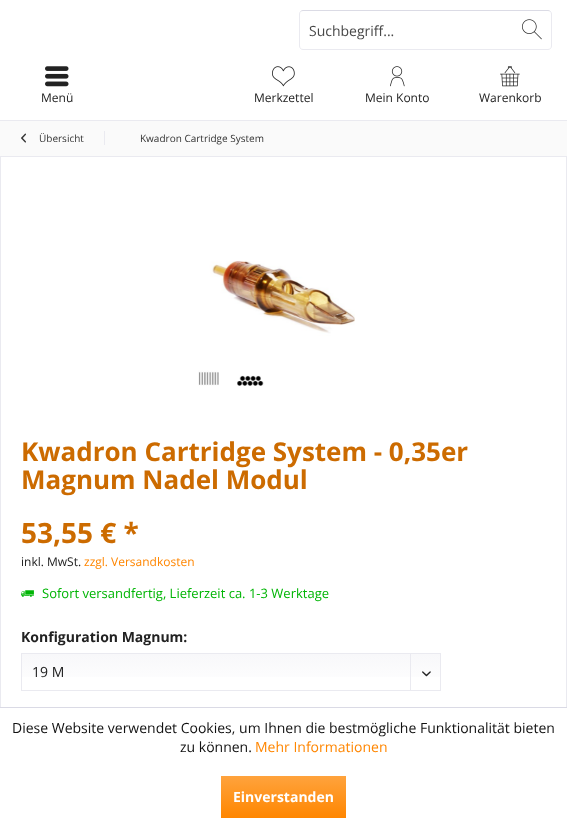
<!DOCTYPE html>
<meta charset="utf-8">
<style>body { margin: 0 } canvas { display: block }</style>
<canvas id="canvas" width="567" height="828"></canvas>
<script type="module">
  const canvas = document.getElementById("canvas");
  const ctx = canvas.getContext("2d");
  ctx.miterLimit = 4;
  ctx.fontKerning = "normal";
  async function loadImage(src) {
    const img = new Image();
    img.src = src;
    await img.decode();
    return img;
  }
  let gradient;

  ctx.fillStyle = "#ffffff";
  ctx.fillRect(0, 0, 567, 828);
  ctx.beginPath();
  ctx.moveTo(300.5, 11.5);
  ctx.bezierCurveTo(301, 11, 302, 10.5, 303, 10.5);
  ctx.lineTo(548, 10.5);
  ctx.bezierCurveTo(549, 10.5, 550, 11, 550.5, 11.5);
  ctx.strokeStyle = "#dbdbe5";
  ctx.stroke();
  ctx.beginPath();
  ctx.moveTo(550.5, 11.5);
  ctx.bezierCurveTo(551, 12, 551.5, 13, 551.5, 14);
  ctx.lineTo(551.5, 46);
  ctx.bezierCurveTo(551.5, 47, 551, 48, 550.5, 48.5);
  ctx.bezierCurveTo(550, 49, 549, 49.5, 548, 49.5);
  ctx.lineTo(303, 49.5);
  ctx.bezierCurveTo(302, 49.5, 301, 49, 300.5, 48.5);
  ctx.bezierCurveTo(300, 48, 299.5, 47, 299.5, 46);
  ctx.lineTo(299.5, 14);
  ctx.bezierCurveTo(299.5, 13, 300, 12, 300.5, 11.5);
  ctx.strokeStyle = "#eaeaf0";
  ctx.stroke();
  ctx.font = "14px Open Sans";
  ctx.fillStyle = "#484848";
  ctx.fillText("Suchbegriff...", 309, 36);
  ctx.drawImage(await loadImage("img1.png"), 522, 19, 20, 21);
  ctx.drawImage(await loadImage("img2.png"), 45, 66, 24, 21);
  ctx.font = "12px Open Sans";
  ctx.fillStyle = "#222222";
  ctx.fillText("Menü", 41, 102);
  ctx.drawImage(await loadImage("img3.png"), 272, 66, 23, 21);
  ctx.fillText("Merkzettel", 254, 102);
  ctx.drawImage(await loadImage("img4.png"), 390, 66, 15, 21);
  ctx.fillText("Mein Konto", 365, 102);
  ctx.drawImage(await loadImage("img5.png"), 500, 66, 20, 21);
  ctx.fillText("Warenkorb", 479, 102);
  ctx.fillStyle = "#fafafa";
  ctx.fillRect(0, 121, 567, 35);
  ctx.fillStyle = "#eaeaf0";
  ctx.fillRect(0, 120, 567, 1);
  ctx.drawImage(await loadImage("img6.png"), 21, 133, 5, 10);
  ctx.font = "10px Open Sans";
  ctx.fillStyle = "#333333";
  ctx.fillText("Übersicht", 39, 142);
  ctx.fillStyle = "#eaeaf0";
  ctx.fillRect(104, 131, 1, 14);
  ctx.fillStyle = "#333333";
  ctx.fillText("Kwadron Cartridge System", 140, 142);
  ctx.fillStyle = "#eaeaf0";
  ctx.fillRect(0, 156, 567, 1);
  ctx.fillRect(566, 156, 1, 551);
  ctx.fillRect(0, 156, 1, 551);
  ctx.drawImage(await loadImage("img7.png"), 198, 260, 157, 126);
  ctx.font = "bold 26px Open Sans";
  ctx.fillStyle = "#cc6b00";
  ctx.fillText("Kwadron Cartridge System - 0,35er", 21, 461);
  ctx.fillText("Magnum Nadel Modul", 21, 489);
  ctx.font = "bold 28px Open Sans";
  ctx.fillText("53,55 € *", 21, 543);
  ctx.font = "12px Open Sans";
  ctx.fillStyle = "#222222";
  ctx.fillText("inkl. MwSt.", 21, 566);
  ctx.fillStyle = "#ff8600";
  ctx.fillText("zzgl. Versandkosten", 84, 566);
  ctx.drawImage(await loadImage("img8.png"), 21, 590, 13, 7);
  ctx.font = "13px Open Sans";
  ctx.fillStyle = "#00b505";
  ctx.fillText("Sofort versandfertig, Lieferzeit ca. 1-3 Werktage", 42, 598);
  ctx.font = "bold 14px Open Sans";
  ctx.fillStyle = "#222222";
  ctx.fillText("Konfiguration Magnum:", 21, 642);
  gradient = ctx.createLinearGradient(231, 654, 231, 690);
  gradient.addColorStop(0, "#f8f8fa");
  gradient.addColorStop(1, "#ffffff");
  ctx.fillStyle = gradient;
  ctx.fillRect(22, 654, 418, 23);
  ctx.strokeRect(21.5, 653.5, 419, 37);
  ctx.font = "14px Open Sans";
  ctx.fillStyle = "#222222";
  ctx.fillText("19 M", 32, 677);
  ctx.fillStyle = "#eaeaf0";
  ctx.fillRect(410, 654, 1, 36);
  ctx.drawImage(await loadImage("img9.png"), 422, 671, 9, 6);
  ctx.fillStyle = "#dadae5";
  ctx.fillRect(0, 707, 567, 1);
  ctx.fillStyle = "#111111";
  ctx.fillText("Diese Website verwendet Cookies, um Ihnen die bestmögliche Funktionalität bieten", 12, 733);
  ctx.fillText("zu können.", 180, 752);
  ctx.fillStyle = "#ff8600";
  ctx.fillText("Mehr Informationen", 255, 752);
  gradient = ctx.createLinearGradient(284, 776, 284, 818);
  gradient.addColorStop(0, "#ffa33d");
  gradient.addColorStop(1, "#ff8600");
  ctx.fillStyle = gradient;
  ctx.fillRect(221, 776, 125, 42);
  ctx.font = "bold 14px Open Sans";
  ctx.fillStyle = "#ffffff";
  ctx.fillText("Einverstanden", 233, 802);
</script>
